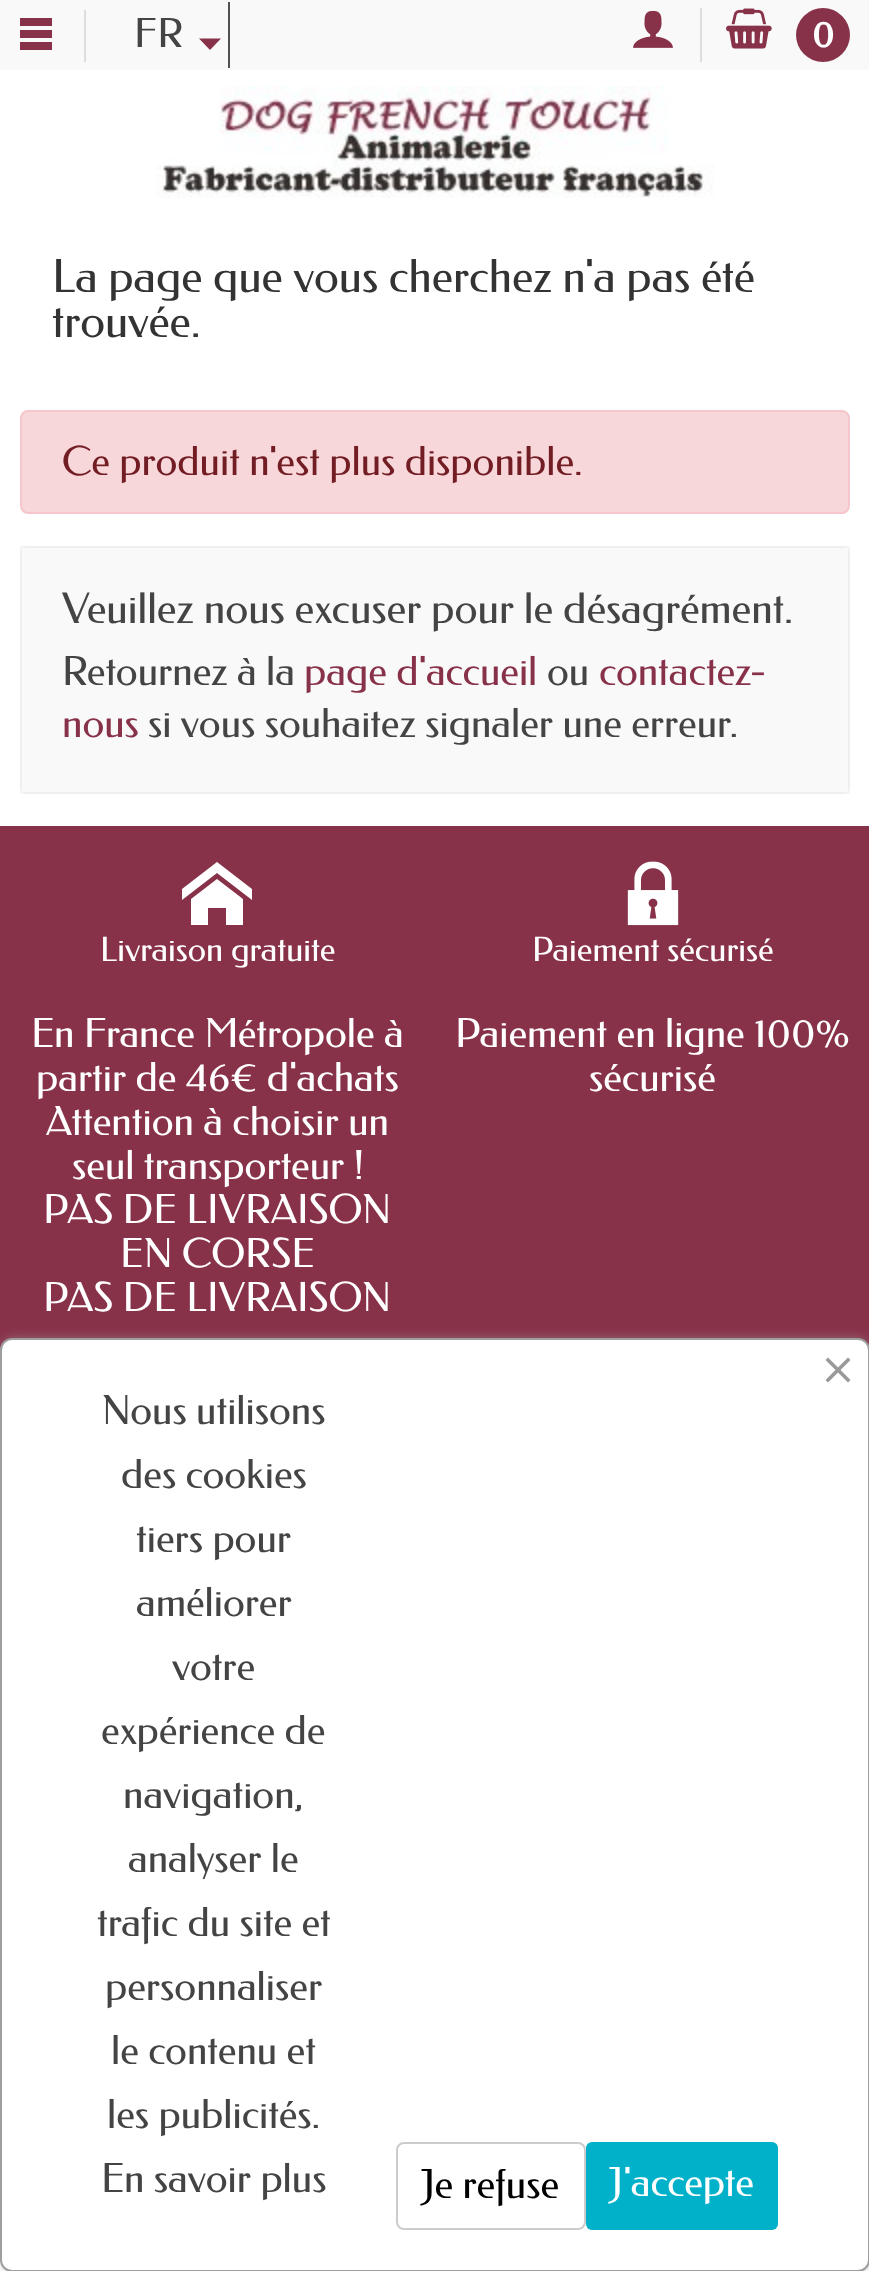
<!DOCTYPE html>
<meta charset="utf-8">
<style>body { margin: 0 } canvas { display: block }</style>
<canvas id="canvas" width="869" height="2271"></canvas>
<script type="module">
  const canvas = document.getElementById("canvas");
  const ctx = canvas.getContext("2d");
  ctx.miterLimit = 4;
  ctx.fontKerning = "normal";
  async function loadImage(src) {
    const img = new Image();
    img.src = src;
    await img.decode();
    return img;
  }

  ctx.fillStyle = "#ffffff";
  ctx.fillRect(0, 0, 869, 2271);
  ctx.fillStyle = "#f9f9f9";
  ctx.fillRect(0, 0, 869, 70);
  ctx.fillStyle = "#dedede";
  ctx.fillRect(84, 10, 2, 52);
  ctx.drawImage(await loadImage("img1.png"), 20, 18, 32, 32);
  ctx.font = "40px Federo";
  ctx.fillStyle = "#444444";
  ctx.fillText("FR", 134, 47);
  ctx.fillStyle = "#88324a";
  ctx.beginPath();
  ctx.moveTo(199, 38.5);
  ctx.lineTo(221, 38.5);
  ctx.lineTo(210, 50);
  ctx.closePath();
  ctx.fill();
  ctx.fillStyle = "#515151";
  ctx.fillRect(228, 2, 2, 66);
  ctx.drawImage(await loadImage("img2.png"), 633, 10, 40, 38);
  ctx.fillStyle = "#dedede";
  ctx.fillRect(700, 8, 2, 54);
  ctx.drawImage(await loadImage("img3.png"), 726, 8, 46, 41);
  ctx.fillStyle = "#88324a";
  ctx.beginPath();
  ctx.arc(823, 35, 27, 0, Math.PI * 2);
  ctx.fill();
  ctx.font = "bold 36px Federo";
  ctx.fillStyle = "#ffffff";
  ctx.fillText("0", 812, 47);
  ctx.drawImage(await loadImage("img4.png"), 156, 86, 558, 112);
  ctx.font = "45.5px Federo";
  ctx.fillStyle = "#333333";
  ctx.fillText("La page que vous cherchez n'a pas été", 52, 292);
  ctx.fillText("trouvée.", 52, 337);
  ctx.fillStyle = "#f8d7da";
  ctx.beginPath();
  ctx.roundRect(21, 411, 828, 102, 7);
  ctx.fill();
  ctx.strokeStyle = "#f5c6cb";
  ctx.lineWidth = 2;
  ctx.stroke();
  ctx.font = "40px Federo";
  ctx.fillStyle = "#721c24";
  ctx.fillText("Ce produit n'est plus disponible.", 62, 475);
  ctx.fillStyle = "#f9f9f9";
  ctx.beginPath();
  ctx.roundRect(20, 546, 830, 248, 8);
  ctx.fill();
  ctx.strokeStyle = "rgba(0, 0, 0, 0.04)";
  ctx.strokeRect(21, 547, 828, 246);
  ctx.font = "42.2px Federo";
  ctx.fillStyle = "#444444";
  ctx.fillText("Veuillez nous excuser pour le désagrément.", 62, 623);
  ctx.font = "40px Federo";
  ctx.fillText("Retournez à la", 62, 685);
  ctx.fillStyle = "#88324a";
  ctx.fillText("page d'accueil", 304, 685);
  ctx.fillStyle = "#444444";
  ctx.fillText("ou", 547, 685);
  ctx.fillStyle = "#88324a";
  ctx.fillText("contactez-", 599, 685);
  ctx.fillText("nous", 62, 737);
  ctx.fillStyle = "#444444";
  ctx.fillText("si vous souhaitez signaler une erreur.", 148, 737);
  ctx.fillStyle = "#88324a";
  ctx.fillRect(0, 826, 869, 524);
  ctx.fillStyle = "#ffffff";
  ctx.beginPath();
  ctx.moveTo(252, 900);
  ctx.lineTo(217, 873);
  ctx.lineTo(182, 900);
  ctx.lineTo(182, 889);
  ctx.lineTo(217, 862);
  ctx.lineTo(252, 889);
  ctx.closePath();
  ctx.moveTo(243, 899);
  ctx.lineTo(243, 925);
  ctx.lineTo(226, 925);
  ctx.lineTo(226, 908);
  ctx.lineTo(208, 908);
  ctx.lineTo(208, 925);
  ctx.lineTo(191, 925);
  ctx.lineTo(191, 899);
  ctx.lineTo(217, 879);
  ctx.closePath();
  ctx.fill();
  ctx.font = "33.5px Federo";
  ctx.fillText("Livraison gratuite", 100, 961);
  ctx.font = "40px Federo";
  ctx.fillText("En France Métropole à", 31, 1047);
  ctx.fillText("partir de 46€ d'achats", 36, 1091);
  ctx.fillText("Attention à choisir un", 46, 1135);
  ctx.fillText("seul transporteur !", 72, 1179);
  ctx.fillText("PAS DE LIVRAISON", 43, 1223);
  ctx.fillText("EN CORSE", 120, 1267);
  ctx.fillText("PAS DE LIVRAISON", 43, 1311);
  ctx.drawImage(await loadImage("img5.png"), 627, 861, 52, 65);
  ctx.font = "33.5px Federo";
  ctx.fillText("Paiement sécurisé", 532, 961);
  ctx.font = "40px Federo";
  ctx.fillText("Paiement en ligne 100%", 455, 1047);
  ctx.fillText("sécurisé", 589, 1091);
  ctx.fillStyle = "#9e9e9e";
  ctx.filter = "blur(7px)";
  ctx.beginPath();
  ctx.roundRect(4, 1342, 862, 926, 8);
  ctx.fill();
  ctx.filter = "none";
  ctx.fillStyle = "#ffffff";
  ctx.beginPath();
  ctx.roundRect(1, 1339, 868, 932, 11);
  ctx.fill();
  ctx.strokeStyle = "#9e9e9e";
  ctx.stroke();
  ctx.fillStyle = "#999999";
  ctx.beginPath();
  ctx.moveTo(825.5, 1380);
  ctx.lineTo(848, 1357.5);
  ctx.lineTo(850.5, 1360);
  ctx.lineTo(828, 1382.5);
  ctx.closePath();
  ctx.fill();
  ctx.beginPath();
  ctx.moveTo(828, 1357.5);
  ctx.lineTo(850.5, 1380);
  ctx.lineTo(848, 1382.5);
  ctx.lineTo(825.5, 1360);
  ctx.closePath();
  ctx.fill();
  ctx.fillStyle = "#444444";
  ctx.fillText("Nous utilisons", 102, 1424);
  ctx.fillText("des cookies", 121, 1488);
  ctx.fillText("tiers pour", 136, 1552);
  ctx.fillText("améliorer", 136, 1616);
  ctx.fillText("votre", 172, 1680);
  ctx.fillText("expérience de", 101, 1744);
  ctx.fillText("navigation,", 123, 1808);
  ctx.fillText("analyser le", 128, 1872);
  ctx.fillText("trafic du site et", 97, 1936);
  ctx.fillText("personnaliser", 105, 2000);
  ctx.fillText("le contenu et", 111, 2064);
  ctx.fillText("les publicités.", 107, 2128);
  ctx.fillText("En savoir plus", 101, 2192);
  ctx.beginPath();
  ctx.roundRect(397, 2143, 188, 86, 7);
  ctx.strokeStyle = "#cccccc";
  ctx.stroke();
  ctx.fillStyle = "#000000";
  ctx.fillText("Je refuse", 421, 2198);
  ctx.fillStyle = "#00b1c9";
  ctx.beginPath();
  ctx.roundRect(586, 2142, 192, 88, 6);
  ctx.fill();
  ctx.fillStyle = "#ffffff";
  ctx.fillText("J'accepte", 609, 2196);
</script>
